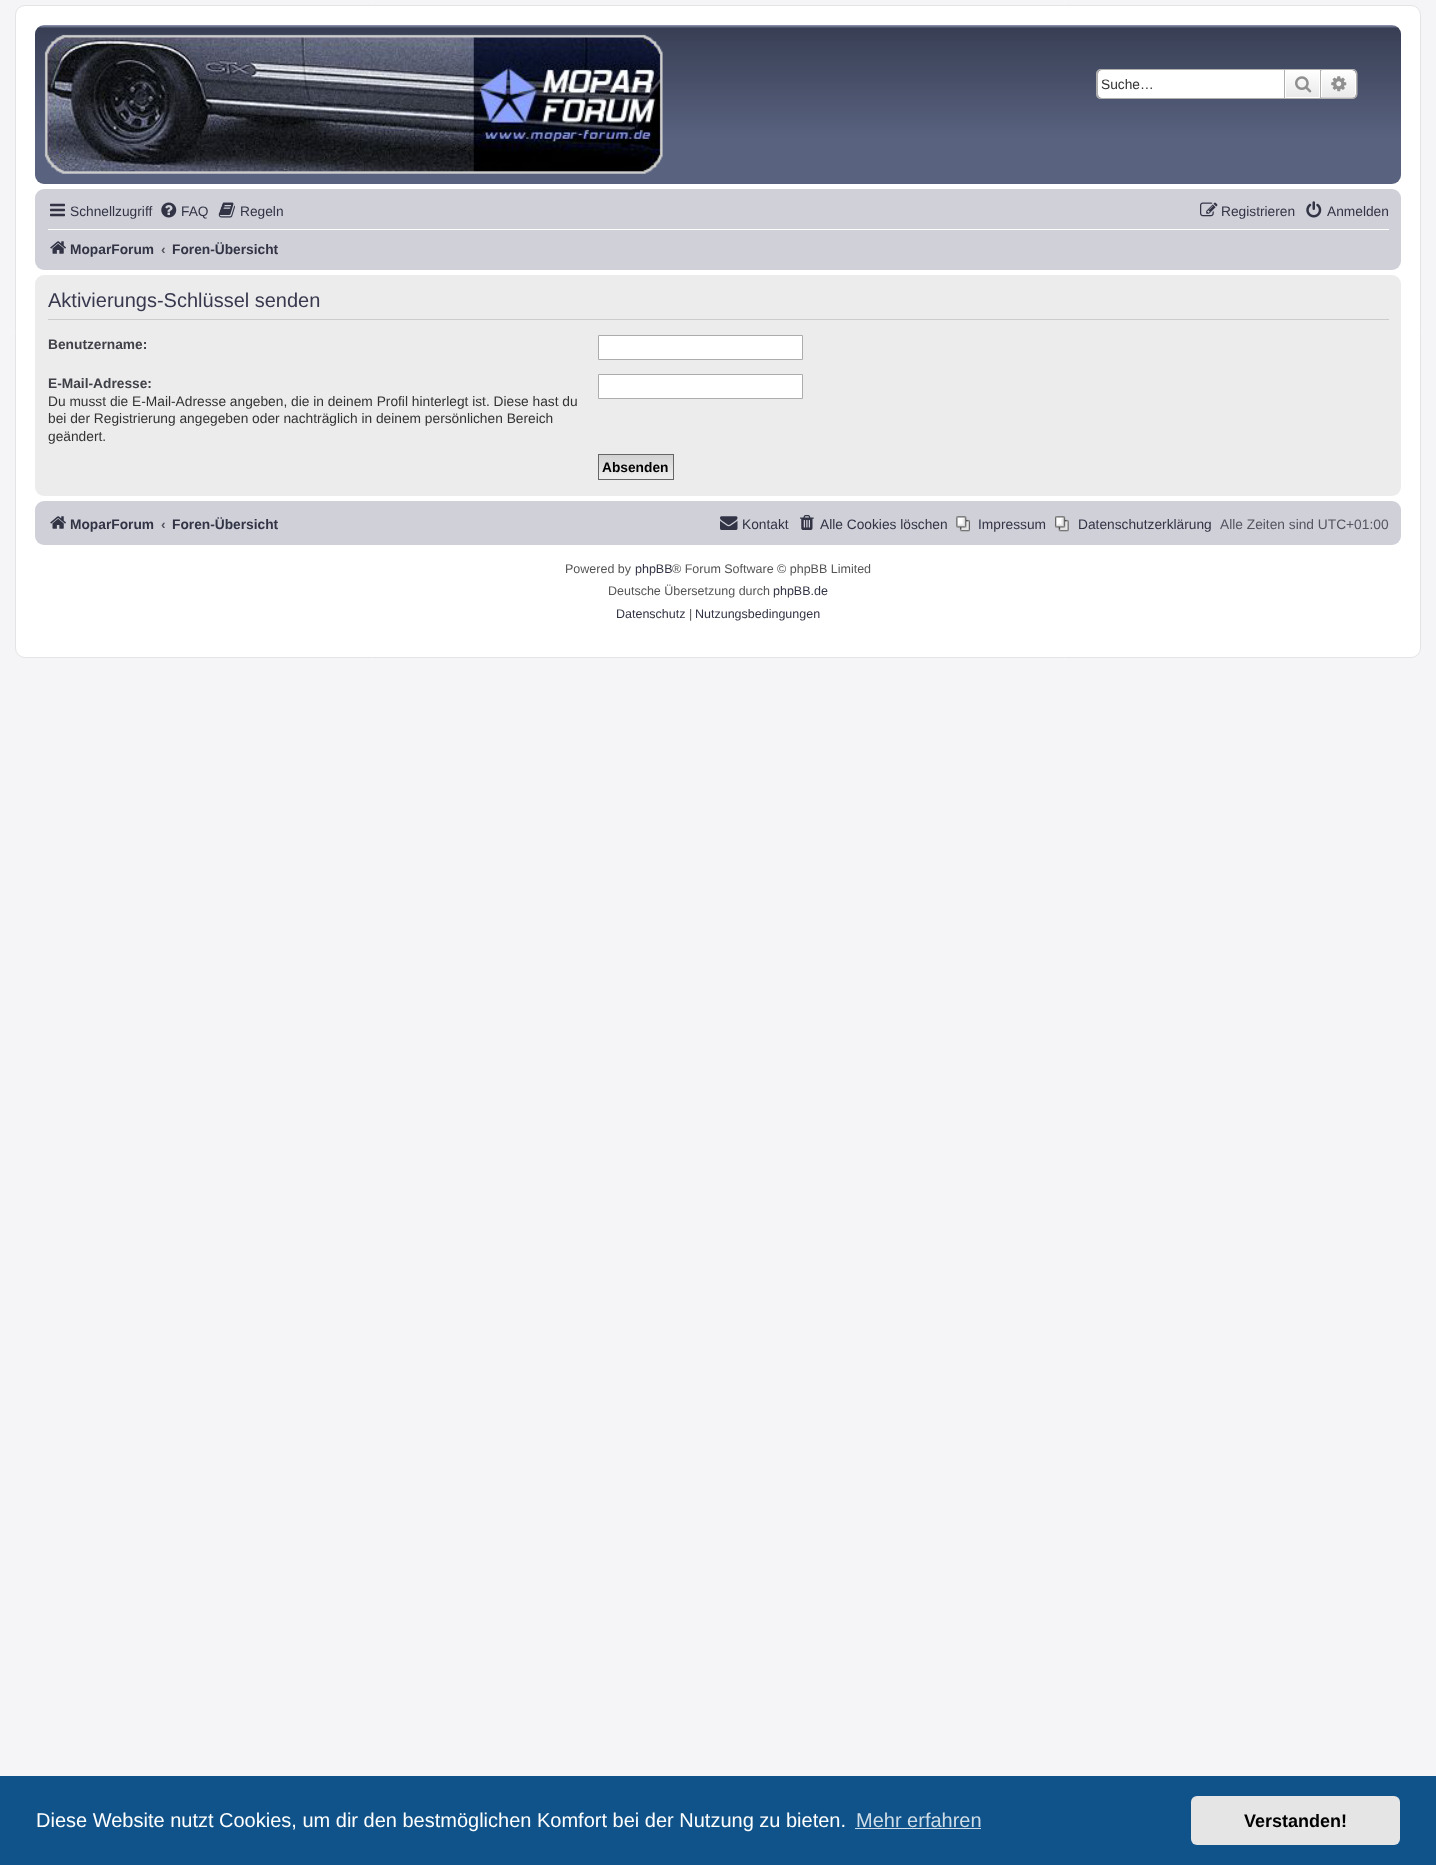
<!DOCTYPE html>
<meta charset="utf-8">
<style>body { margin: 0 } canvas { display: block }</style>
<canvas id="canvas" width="1436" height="1865"></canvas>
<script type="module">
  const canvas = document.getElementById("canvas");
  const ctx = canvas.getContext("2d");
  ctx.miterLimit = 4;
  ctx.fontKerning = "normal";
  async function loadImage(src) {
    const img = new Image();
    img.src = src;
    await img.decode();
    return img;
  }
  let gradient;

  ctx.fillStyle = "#f5f5f7";
  ctx.fillRect(0, 0, 1436, 1865);
  ctx.fillStyle = "#ffffff";
  ctx.beginPath();
  ctx.roundRect(15.5, 5.5, 1405, 652, 9.5);
  ctx.fill();
  ctx.strokeStyle = "#e4e4e6";
  ctx.stroke();
  gradient = ctx.createLinearGradient(718, 25, 718, 184);
  gradient.addColorStop(0, "#959dba");
  gradient.addColorStop(0.02, "#383f55");
  gradient.addColorStop(0.72, "#59627f");
  gradient.addColorStop(1, "#59627f");
  ctx.fillStyle = gradient;
  ctx.beginPath();
  ctx.roundRect(35, 25, 1366, 159, 9);
  ctx.fill();
  ctx.drawImage(await loadImage("img1.png"), 44, 34, 619, 140);
  ctx.fillStyle = "#ffffff";
  ctx.beginPath();
  ctx.roundRect(1098, 70, 186, 28, [4, 0, 0, 4]);
  ctx.fill();
  ctx.fillStyle = "#b1b0af";
  ctx.beginPath();
  ctx.moveTo(1101, 69);
  ctx.lineTo(1284, 69);
  ctx.lineTo(1284, 99);
  ctx.lineTo(1101, 99);
  ctx.bezierCurveTo(1098, 99, 1096, 97, 1096, 94);
  ctx.lineTo(1096, 74);
  ctx.bezierCurveTo(1096, 71, 1098, 69, 1101, 69);
  ctx.closePath();
  ctx.moveTo(1101, 70);
  ctx.lineTo(1284, 70);
  ctx.lineTo(1284, 98);
  ctx.lineTo(1101, 98);
  ctx.bezierCurveTo(1099, 98, 1098, 96, 1098, 94);
  ctx.lineTo(1098, 74);
  ctx.bezierCurveTo(1098, 72, 1099, 70, 1101, 70);
  ctx.closePath();
  ctx.fill("evenodd");
  ctx.font = "13.75px Liberation Sans";
  ctx.fillStyle = "#333333";
  ctx.fillText("Suche…", 1101, 89);
  gradient = ctx.createLinearGradient(1303, 70, 1303, 98);
  gradient.addColorStop(0, "#ffffff");
  gradient.addColorStop(1, "#e9e9e9");
  ctx.fillStyle = gradient;
  ctx.fillRect(1286, 71, 33, 26);
  ctx.strokeStyle = "#ffffff";
  ctx.strokeRect(1285.5, 70.5, 34, 27);
  ctx.strokeStyle = "#b1b0af";
  ctx.strokeRect(1284.5, 69.5, 36, 29);
  ctx.drawImage(await loadImage("img2.png"), 1295, 76, 17, 17);
  gradient = ctx.createLinearGradient(1339, 70, 1339, 98);
  gradient.addColorStop(0, "#ffffff");
  gradient.addColorStop(1, "#e9e9e9");
  ctx.fillStyle = gradient;
  ctx.beginPath();
  ctx.roundRect(1321.5, 70.5, 34, 27, [0, 3.5, 3.5, 0]);
  ctx.fill();
  ctx.strokeStyle = "#ffffff";
  ctx.stroke();
  ctx.fillStyle = "#b1b0af";
  ctx.beginPath();
  ctx.moveTo(1321, 69);
  ctx.lineTo(1352.5, 69);
  ctx.bezierCurveTo(1355.5, 69, 1357.5, 71, 1357.5, 74);
  ctx.lineTo(1357.5, 94);
  ctx.bezierCurveTo(1357.5, 96.5, 1355.5, 99, 1352.5, 99);
  ctx.lineTo(1321, 99);
  ctx.closePath();
  ctx.moveTo(1321, 70);
  ctx.lineTo(1352.5, 70);
  ctx.bezierCurveTo(1354.5, 70, 1356, 71.5, 1356, 74);
  ctx.lineTo(1356, 94);
  ctx.bezierCurveTo(1356, 96, 1354.5, 97.5, 1352.5, 97.5);
  ctx.lineTo(1321, 97.5);
  ctx.closePath();
  ctx.fill("evenodd");
  ctx.drawImage(await loadImage("img3.png"), 1331, 76, 16, 16);
  ctx.fillStyle = "#cfd0d8";
  ctx.beginPath();
  ctx.roundRect(35, 189, 1366, 81, 9);
  ctx.fill();
  ctx.drawImage(await loadImage("img4.png"), 50, 203, 15, 14);
  ctx.fillStyle = "#323445";
  ctx.fillText("Schnellzugriff", 70, 216);
  ctx.drawImage(await loadImage("img5.png"), 161, 202, 16, 16);
  ctx.fillText("FAQ", 181, 216);
  ctx.drawImage(await loadImage("img6.png"), 218, 202, 17, 16);
  ctx.fillText("Regeln", 240, 216);
  ctx.drawImage(await loadImage("img7.png"), 1200, 202, 18, 15);
  ctx.fillText("Registrieren", 1221, 216);
  ctx.drawImage(await loadImage("img8.png"), 1306, 201, 16, 17);
  ctx.fillText("Anmelden", 1327, 216);
  ctx.fillStyle = "#ffffff";
  ctx.fillRect(48, 229, 1341, 1);
  ctx.drawImage(await loadImage("img9.png"), 50, 241, 16, 13);
  ctx.font = "bold 13.75px Liberation Sans";
  ctx.fillStyle = "#323445";
  ctx.fillText("MoparForum", 70, 254);
  ctx.fillStyle = "#545560";
  ctx.fillText("‹", 161, 254);
  ctx.fillStyle = "#323445";
  ctx.fillText("Foren-Übersicht", 172, 254);
  ctx.fillStyle = "#ececed";
  ctx.beginPath();
  ctx.roundRect(35, 275, 1366, 221, 9);
  ctx.fill();
  ctx.fillStyle = "#cccccc";
  ctx.fillRect(48, 319, 1341, 1);
  ctx.font = "20px Liberation Sans";
  ctx.fillStyle = "#38384e";
  ctx.fillText("Aktivierungs-Schlüssel senden", 48, 307);
  ctx.font = "bold 13.75px Liberation Sans";
  ctx.fillStyle = "#404148";
  ctx.fillText("Benutzername:", 48, 349);
  ctx.fillStyle = "#ffffff";
  ctx.beginPath();
  ctx.rect(598.5, 335.5, 204, 24);
  ctx.fill();
  ctx.strokeStyle = "#acacaf";
  ctx.stroke();
  ctx.fillStyle = "#404148";
  ctx.fillText("E-Mail-Adresse:", 48, 388);
  ctx.font = "13.75px Liberation Sans";
  ctx.fillStyle = "#333333";
  ctx.fillText("Du musst die E-Mail-Adresse angeben, die in deinem Profil hinterlegt ist. Diese hast du", 48, 406);
  ctx.fillText("bei der Registrierung angegeben oder nachträglich in deinem persönlichen Bereich", 48, 423);
  ctx.fillText("geändert.", 48, 441);
  ctx.fillStyle = "#ffffff";
  ctx.beginPath();
  ctx.rect(598.5, 374.5, 204, 24);
  ctx.fill();
  ctx.stroke();
  gradient = ctx.createLinearGradient(636, 455, 636, 479);
  gradient.addColorStop(0, "#d2d2d2");
  gradient.addColorStop(1, "#efefef");
  ctx.fillStyle = gradient;
  ctx.fillRect(599, 455, 74, 20);
  ctx.strokeStyle = "#666666";
  ctx.strokeRect(598.5, 454.5, 75, 25);
  ctx.font = "bold 13.75px Liberation Sans";
  ctx.fillStyle = "#000000";
  ctx.fillText("Absenden", 602, 472);
  ctx.fillStyle = "#cfd0d8";
  ctx.beginPath();
  ctx.roundRect(35, 501, 1366, 44, 9);
  ctx.fill();
  ctx.drawImage(await loadImage("img9.png"), 50, 516, 16, 13);
  ctx.fillStyle = "#323445";
  ctx.fillText("MoparForum", 70, 529);
  ctx.fillStyle = "#545560";
  ctx.fillText("‹", 161, 529);
  ctx.fillStyle = "#323445";
  ctx.fillText("Foren-Übersicht", 172, 529);
  ctx.drawImage(await loadImage("img10.png"), 720, 516, 18, 14);
  ctx.font = "13.75px Liberation Sans";
  ctx.fillText("Kontakt", 742, 529);
  ctx.drawImage(await loadImage("img11.png"), 800, 515, 14, 15);
  ctx.fillText("Alle Cookies löschen", 820, 529);
  ctx.drawImage(await loadImage("img12.png"), 956, 516, 14, 16);
  ctx.fillText("Impressum", 978, 529);
  ctx.drawImage(await loadImage("img13.png"), 1055, 516, 14, 16);
  ctx.fillText("Datenschutzerklärung", 1078, 529);
  ctx.fillStyle = "#545560";
  ctx.fillText("Alle Zeiten sind UTC+01:00", 1220, 529);
  ctx.font = "12.5px Liberation Sans";
  ctx.fillStyle = "#555555";
  ctx.fillText("Powered by", 565, 573);
  ctx.fillStyle = "#323445";
  ctx.fillText("phpBB", 635, 573);
  ctx.fillStyle = "#555555";
  ctx.fillText("® Forum Software © phpBB Limited", 672, 573);
  ctx.fillText("Deutsche Übersetzung durch", 608, 595);
  ctx.fillStyle = "#323445";
  ctx.fillText("phpBB.de", 773, 595);
  ctx.fillText("Datenschutz", 616, 618);
  ctx.fillStyle = "#555555";
  ctx.fillText("|", 689, 618);
  ctx.fillStyle = "#323445";
  ctx.fillText("Nutzungsbedingungen", 695, 618);
  ctx.fillStyle = "#0f538a";
  ctx.fillRect(0, 1776, 1436, 89);
  ctx.font = "20px Liberation Sans";
  ctx.fillStyle = "#ffffff";
  ctx.fillText("Diese Website nutzt Cookies, um dir den bestmöglichen Komfort bei der Nutzung zu bieten.", 36, 1827);
  ctx.fillStyle = "#cfdde8";
  ctx.fillText("Mehr erfahren", 856, 1827);
  ctx.fillRect(855, 1828, 126, 1);
  ctx.fillStyle = "#e5e5e5";
  ctx.beginPath();
  ctx.roundRect(1191, 1796, 209, 49, 6);
  ctx.fill();
  ctx.font = "bold 18px Liberation Sans";
  ctx.fillStyle = "#000000";
  ctx.fillText("Verstanden!", 1244, 1827);
</script>
